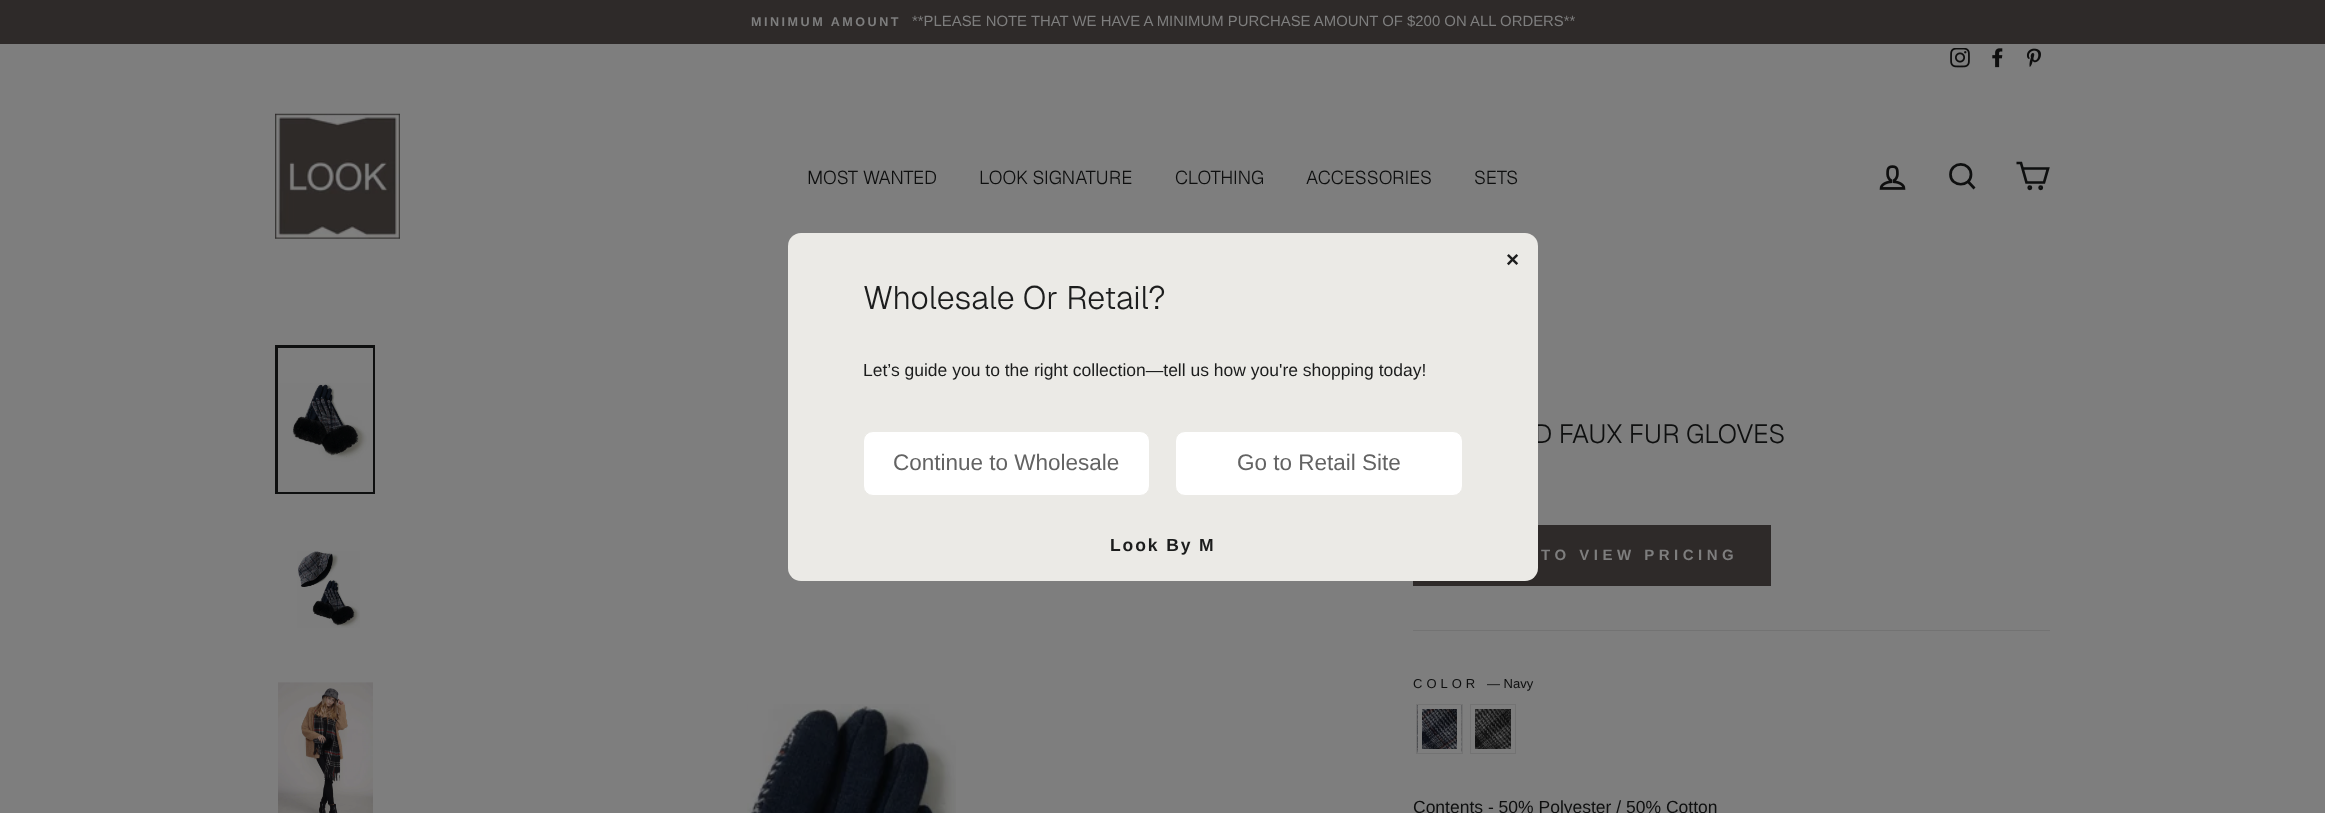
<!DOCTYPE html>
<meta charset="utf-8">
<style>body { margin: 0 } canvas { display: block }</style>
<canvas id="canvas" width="2325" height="813"></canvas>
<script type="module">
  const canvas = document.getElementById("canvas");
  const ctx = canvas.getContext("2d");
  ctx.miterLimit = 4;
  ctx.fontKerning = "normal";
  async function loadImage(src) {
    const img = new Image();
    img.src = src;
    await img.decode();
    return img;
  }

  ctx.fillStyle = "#7e7e7e";
  ctx.fillRect(0, 0, 2325, 813);
  ctx.fillStyle = "#2e2a29";
  ctx.fillRect(0, 0, 2325, 44);
  ctx.letterSpacing = "2.5px";
  ctx.font = "bold 12.6px Liberation Sans";
  ctx.fillStyle = "#7e7e7e";
  ctx.fillText("MINIMUM AMOUNT", 751, 26);
  ctx.letterSpacing = "0px";
  ctx.font = "14.9px Liberation Sans";
  ctx.fillText("**PLEASE NOTE THAT WE HAVE A MINIMUM PURCHASE AMOUNT OF $200 ON ALL ORDERS**", 912, 26);
  ctx.drawImage(await loadImage("img1.png"), 1950, 48, 20, 20);
  ctx.drawImage(await loadImage("img2.png"), 1992, 48, 11, 20);
  ctx.drawImage(await loadImage("img3.png"), 2026, 48, 15, 19);
  ctx.fillStyle = "rgba(0, 0, 0, 0.2)";
  ctx.filter = "blur(0.5px)";
  ctx.beginPath();
  ctx.rect(0, 76, 2325, 200);
  ctx.fill();
  ctx.filter = "none";
  ctx.fillStyle = "#7e7e7e";
  ctx.fillRect(0, 76, 2325, 200);
  ctx.drawImage(await loadImage("img4.png"), 275, 113, 125, 126);
  ctx.font = "300 18.75px Geist";
  ctx.fillStyle = "#0e0f0f";
  ctx.fillText("MOST WANTED", 807, 184);
  ctx.fillText("LOOK SIGNATURE", 979, 184);
  ctx.fillText("CLOTHING", 1175, 184);
  ctx.fillText("ACCESSORIES", 1306, 184);
  ctx.fillText("SETS", 1474, 184);
  ctx.drawImage(await loadImage("img5.png"), 1879, 165, 27, 25);
  ctx.beginPath();
  ctx.moveTo(1971, 174.5);
  ctx.bezierCurveTo(1971, 187.5, 1950.5, 187.5, 1950.5, 174.5);
  ctx.bezierCurveTo(1950.5, 161, 1971, 161, 1971, 174.5);
  ctx.closePath();
  ctx.moveTo(1974.5, 188.5);
  ctx.lineTo(1968, 181.5);
  ctx.strokeStyle = "#0e0f0f";
  ctx.lineWidth = 2.7;
  ctx.stroke();
  ctx.beginPath();
  ctx.moveTo(2022.5, 168.5);
  ctx.lineTo(2048, 168.5);
  ctx.lineTo(2044, 182.5);
  ctx.lineTo(2026.5, 182.5);
  ctx.lineTo(2021, 163);
  ctx.lineTo(2016.5, 163);
  ctx.stroke();
  ctx.beginPath();
  ctx.arc(2029.8, 187.7, 1.1, 0, Math.PI * 2);
  ctx.stroke();
  ctx.beginPath();
  ctx.arc(2040.7, 187.7, 1.1, 0, Math.PI * 2);
  ctx.stroke();
  ctx.lineWidth = 3;
  ctx.strokeRect(276.5, 346.5, 97, 146);
  ctx.fillStyle = "#7e7e7e";
  ctx.fillRect(372, 348, 1, 35);
  ctx.drawImage(await loadImage("img6.png"), 278, 383, 95, 109);
  ctx.drawImage(await loadImage("img7.png"), 297, 551, 63, 77);
  ctx.drawImage(await loadImage("img8.png"), 278, 682, 95, 131);
  ctx.drawImage(await loadImage("img9.png"), 747, 704, 209, 109);
  ctx.font = "300 26.25px Geist";
  ctx.fillStyle = "#0e0f0f";
  ctx.fillText("D FAUX FUR GLOVES", 1534, 443);
  ctx.fillStyle = "#2e2a29";
  ctx.fillRect(1413, 525, 358, 61);
  ctx.letterSpacing = "4.5px";
  ctx.font = "bold 15px Liberation Sans";
  ctx.fillStyle = "#7e7e7e";
  ctx.fillText("TO VIEW PRICING", 1541, 560);
  ctx.fillStyle = "#737373";
  ctx.fillRect(1413, 630, 637, 1);
  ctx.letterSpacing = "4px";
  ctx.font = "13px Liberation Sans";
  ctx.fillStyle = "#0e0f0f";
  ctx.fillText("COLOR", 1413, 688);
  ctx.letterSpacing = "0px";
  ctx.fillText("— Navy", 1487, 688);
  ctx.strokeStyle = "#737373";
  ctx.lineWidth = 1;
  ctx.strokeRect(1416.5, 704.5, 46, 49);
  ctx.drawImage(await loadImage("img10.png"), 1417, 705, 45, 48);
  ctx.strokeStyle = "#7e7e7e";
  ctx.lineWidth = 4;
  ctx.strokeRect(1420, 707, 39, 44);
  ctx.strokeStyle = "#737373";
  ctx.lineWidth = 1;
  ctx.strokeRect(1470.5, 704.5, 45, 49);
  ctx.drawImage(await loadImage("img11.png"), 1475, 709, 36, 40);
  ctx.font = "17.5px Liberation Sans";
  ctx.fillText("Contents - 50% Polyester / 50% Cotton", 1413, 813);
  ctx.fillStyle = "#ebeae6";
  ctx.beginPath();
  ctx.roundRect(788, 233, 750, 348, 13);
  ctx.fill();
  ctx.font = "bold 22.5px Liberation Sans";
  ctx.fillStyle = "#1c1d1d";
  ctx.fillText("×", 1506, 267);
  ctx.font = "300 32.25px Geist";
  ctx.fillText("Wholesale Or Retail?", 863, 309);
  ctx.font = "17.5px Liberation Sans";
  ctx.fillText("Let’s guide you to the right collection—tell us how you're shopping today!", 863, 376);
  ctx.fillStyle = "#ffffff";
  ctx.beginPath();
  ctx.roundRect(863.5, 431.5, 286, 64, 9.5);
  ctx.fill();
  ctx.strokeStyle = "#ebeae6";
  ctx.stroke();
  ctx.font = "22.5px Liberation Sans";
  ctx.fillStyle = "#636363";
  ctx.fillText("Continue to Wholesale", 893, 470);
  ctx.fillStyle = "#ffffff";
  ctx.beginPath();
  ctx.roundRect(1175.5, 431.5, 287, 64, 9.5);
  ctx.fill();
  ctx.stroke();
  ctx.fillStyle = "#636363";
  ctx.fillText("Go to Retail Site", 1237, 470);
  ctx.letterSpacing = "1.9px";
  ctx.font = "bold 17.5px Liberation Sans";
  ctx.fillStyle = "#1c1d1d";
  ctx.fillText("Look By M", 1110, 551);
</script>
